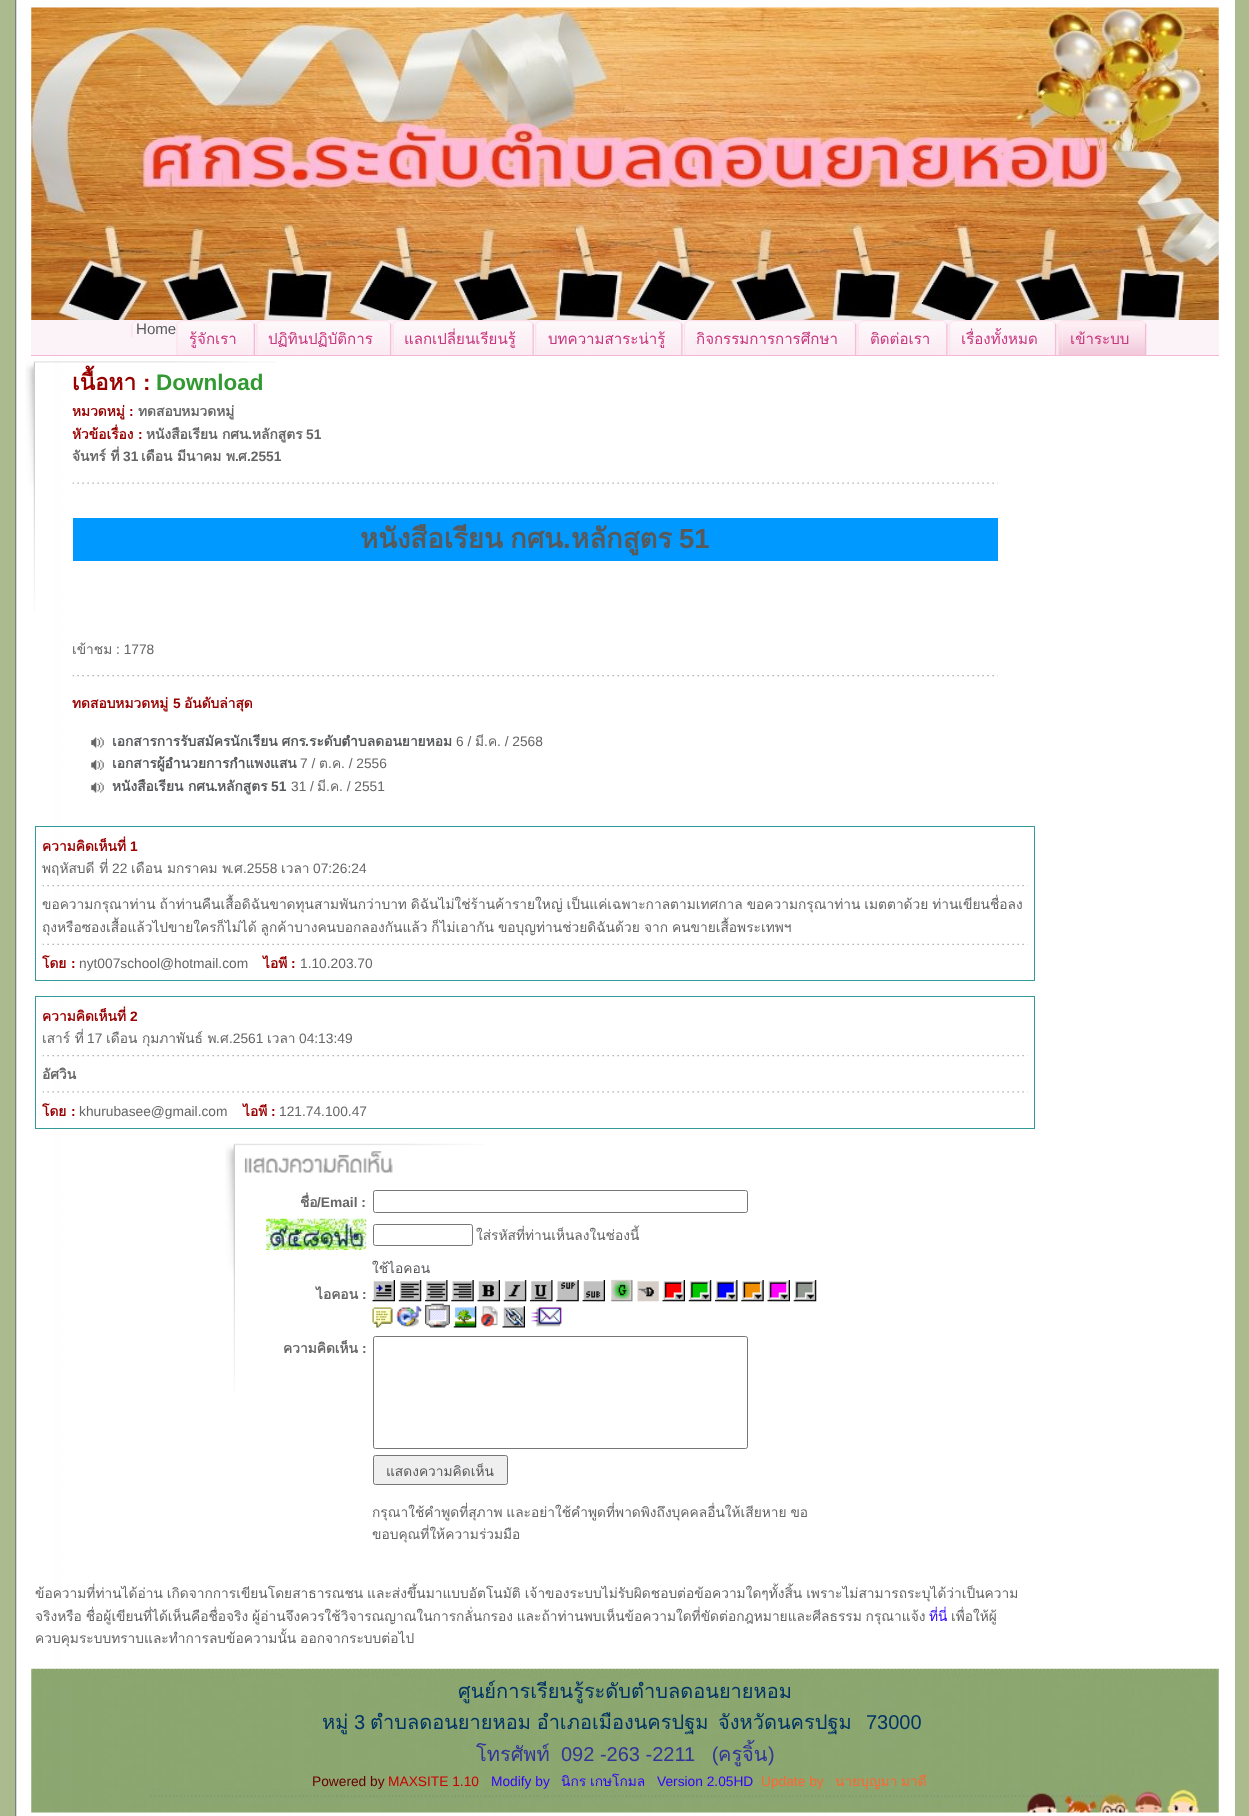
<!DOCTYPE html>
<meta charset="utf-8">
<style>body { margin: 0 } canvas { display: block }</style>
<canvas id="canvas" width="1249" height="1816"></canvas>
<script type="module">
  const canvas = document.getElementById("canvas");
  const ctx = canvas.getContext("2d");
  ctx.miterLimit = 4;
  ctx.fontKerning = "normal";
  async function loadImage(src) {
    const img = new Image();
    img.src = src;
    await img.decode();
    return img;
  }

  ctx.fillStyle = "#abbb8d";
  ctx.fillRect(0, 0, 1249, 1816);
  ctx.drawImage(await loadImage("img1.png"), 15, 0, 1220, 1816);
  ctx.drawImage(await loadImage("img2.png"), 31, 7, 1188, 313);
  ctx.fillStyle = "#fcf3f8";
  ctx.fillRect(31, 320, 1188, 35);
  ctx.fillStyle = "#f4b7d6";
  ctx.fillRect(31, 355, 1188, 1);
  ctx.drawImage(await loadImage("img3.png"), 131, 320, 6, 18);
  ctx.font = "15.1px Liberation Sans";
  ctx.fillStyle = "#58595b";
  ctx.fillText("Home", 136, 334);
  ctx.drawImage(await loadImage("img4.png"), 176, 320, 6, 35);
  ctx.drawImage(await loadImage("img5.png"), 181, 320, 75, 35);
  ctx.font = "15.1px Loma";
  ctx.fillStyle = "#c7377d";
  ctx.fillText("รู้จักเรา", 189, 344);
  ctx.drawImage(await loadImage("img6.png"), 256, 320, 6, 35);
  ctx.drawImage(await loadImage("img7.png"), 261, 320, 131, 35);
  ctx.fillText("ปฏิทินปฏิบัติการ", 268, 344);
  ctx.drawImage(await loadImage("img8.png"), 392, 320, 6, 35);
  ctx.drawImage(await loadImage("img9.png"), 397, 320, 137, 35);
  ctx.fillText("แลกเปลี่ยนเรียนรู้", 404, 344);
  ctx.drawImage(await loadImage("img10.png"), 535, 320, 5, 35);
  ctx.drawImage(await loadImage("img11.png"), 540, 320, 143, 35);
  ctx.fillText("บทความสาระน่ารู้", 548, 344);
  ctx.drawImage(await loadImage("img12.png"), 683, 320, 6, 35);
  ctx.drawImage(await loadImage("img13.png"), 689, 320, 168, 35);
  ctx.fillText("กิจกรรมการการศึกษา", 696, 344);
  ctx.drawImage(await loadImage("img8.png"), 857, 320, 6, 35);
  ctx.drawImage(await loadImage("img14.png"), 862, 320, 86, 35);
  ctx.fillText("ติดต่อเรา", 870, 344);
  ctx.drawImage(await loadImage("img12.png"), 948, 320, 6, 35);
  ctx.drawImage(await loadImage("img15.png"), 954, 320, 103, 35);
  ctx.fillText("เรื่องทั้งหมด", 961, 344);
  ctx.drawImage(await loadImage("img16.png"), 1057, 320, 6, 35);
  ctx.drawImage(await loadImage("img17.png"), 1062, 320, 85, 35);
  ctx.fillText("เข้าระบบ", 1070, 344);
  ctx.drawImage(await loadImage("img18.png"), 25, 361, 10, 250);
  ctx.drawImage(await loadImage("img19.png"), 35, 361, 241, 2);
  ctx.font = "bold 22.5px Loma";
  ctx.fillStyle = "#990000";
  ctx.fillText("เนื้อหา", 72, 390);
  ctx.font = "bold 22.5px Liberation Sans";
  ctx.fillText(":", 143, 390);
  ctx.fillStyle = "#339933";
  ctx.fillText("Download", 156, 390);
  ctx.font = "bold 13.75px Loma";
  ctx.fillStyle = "#990000";
  ctx.fillText("หมวดหมู่", 72, 416);
  ctx.font = "bold 13.75px Liberation Sans";
  ctx.fillText(":", 129, 416);
  ctx.font = "bold 13.75px Loma";
  ctx.fillStyle = "#666666";
  ctx.fillText("ทดสอบหมวดหมู่", 138, 416);
  ctx.fillStyle = "#990000";
  ctx.fillText("หัวข้อเรื่อง", 72, 439);
  ctx.font = "bold 13.75px Liberation Sans";
  ctx.fillText(":", 138, 439);
  ctx.font = "bold 13.75px Loma";
  ctx.fillStyle = "#666666";
  ctx.fillText("หนังสือเรียน กศน", 146, 439);
  ctx.font = "bold 13.75px Liberation Sans";
  ctx.fillText(".", 248, 439);
  ctx.font = "bold 13.75px Loma";
  ctx.fillText("หลักสูตร", 252, 439);
  ctx.font = "bold 13.75px Liberation Sans";
  ctx.fillText("51", 306, 439);
  ctx.font = "bold 13.75px Loma";
  ctx.fillText("จันทร์ ที่", 72, 461);
  ctx.font = "bold 13.75px Liberation Sans";
  ctx.fillText("31", 123, 461);
  ctx.font = "bold 13.75px Loma";
  ctx.fillText("เดือน มีนาคม พ", 141, 461);
  ctx.font = "bold 13.75px Liberation Sans";
  ctx.fillText(".", 235, 461);
  ctx.font = "bold 13.75px Loma";
  ctx.fillText("ศ", 238, 461);
  ctx.font = "bold 13.75px Liberation Sans";
  ctx.fillText(".2551", 247, 461);
  ctx.drawImage(await loadImage("img20.png"), 72, 482, 926, 2);
  ctx.fillStyle = "#0099ff";
  ctx.fillRect(73, 518, 925, 43);
  ctx.wordSpacing = "-2px";
  ctx.font = "bold 27.5px Loma";
  ctx.fillStyle = "#58595b";
  ctx.fillText("หนังสือเรียน กศน", 360, 548);
  ctx.wordSpacing = "0px";
  ctx.font = "bold 27.5px Liberation Sans";
  ctx.fillText(".", 563, 548);
  ctx.font = "bold 27.5px Loma";
  ctx.fillText("หลักสูตร", 571, 548);
  ctx.font = "bold 27.5px Liberation Sans";
  ctx.fillText("51", 679, 548);
  ctx.font = "13.75px Loma";
  ctx.fillStyle = "#666666";
  ctx.fillText("เข้าชม", 72, 654);
  ctx.font = "13.75px Liberation Sans";
  ctx.fillText(": 1778", 116, 654);
  ctx.drawImage(await loadImage("img21.png"), 72, 675, 926, 2);
  ctx.font = "bold 13.75px Loma";
  ctx.fillStyle = "#990000";
  ctx.fillText("ทดสอบหมวดหมู่", 72, 708);
  ctx.font = "bold 13.75px Liberation Sans";
  ctx.fillText("5", 173, 708);
  ctx.font = "bold 13.75px Loma";
  ctx.fillText("อันดับล่าสุด", 184, 708);
  ctx.drawImage(await loadImage("img22.png"), 91, 737, 13, 11);
  ctx.wordSpacing = "-0.75px";
  ctx.fillStyle = "#58595b";
  ctx.fillText("เอกสารการรับสมัครนักเรียน ศกร", 112, 746);
  ctx.wordSpacing = "0px";
  ctx.font = "bold 13.75px Liberation Sans";
  ctx.fillText(".", 305, 746);
  ctx.font = "bold 13.75px Loma";
  ctx.fillText("ระดับตำบลดอนยายหอม", 309, 746);
  ctx.font = "13.75px Liberation Sans";
  ctx.fillStyle = "#666666";
  ctx.fillText("6 /", 456, 746);
  ctx.font = "13.75px Loma";
  ctx.fillText("มี", 475, 746);
  ctx.font = "13.75px Liberation Sans";
  ctx.fillText(".", 484, 746);
  ctx.font = "13.75px Loma";
  ctx.fillText("ค", 488, 746);
  ctx.font = "13.75px Liberation Sans";
  ctx.fillText(". / 2568", 497, 746);
  ctx.drawImage(await loadImage("img23.png"), 91, 759, 13, 11);
  ctx.font = "bold 13.75px Loma";
  ctx.fillStyle = "#58595b";
  ctx.fillText("เอกสารผู้อำนวยการกำแพงแสน", 112, 768);
  ctx.font = "13.75px Liberation Sans";
  ctx.fillStyle = "#666666";
  ctx.fillText("7 /", 300, 768);
  ctx.font = "13.75px Loma";
  ctx.fillText("ต", 319, 768);
  ctx.font = "13.75px Liberation Sans";
  ctx.fillText(".", 328, 768);
  ctx.font = "13.75px Loma";
  ctx.fillText("ค", 332, 768);
  ctx.font = "13.75px Liberation Sans";
  ctx.fillText(". / 2556", 341, 768);
  ctx.drawImage(await loadImage("img24.png"), 91, 782, 13, 11);
  ctx.font = "bold 13.75px Loma";
  ctx.fillStyle = "#58595b";
  ctx.fillText("หนังสือเรียน กศน", 112, 791);
  ctx.font = "bold 13.75px Liberation Sans";
  ctx.fillText(".", 214, 791);
  ctx.font = "bold 13.75px Loma";
  ctx.fillText("หลักสูตร", 217, 791);
  ctx.font = "bold 13.75px Liberation Sans";
  ctx.fillText("51", 271, 791);
  ctx.font = "13.75px Liberation Sans";
  ctx.fillStyle = "#666666";
  ctx.fillText("31 /", 291, 791);
  ctx.font = "13.75px Loma";
  ctx.fillText("มี", 317, 791);
  ctx.font = "13.75px Liberation Sans";
  ctx.fillText(".", 326, 791);
  ctx.font = "13.75px Loma";
  ctx.fillText("ค", 330, 791);
  ctx.font = "13.75px Liberation Sans";
  ctx.fillText(". / 2551", 339, 791);
  ctx.strokeStyle = "#339999";
  ctx.strokeRect(35.5, 826.5, 999, 154);
  ctx.font = "bold 13.75px Loma";
  ctx.fillStyle = "#990000";
  ctx.fillText("ความคิดเห็นที่", 42, 851);
  ctx.font = "bold 13.75px Liberation Sans";
  ctx.fillText("1", 130, 851);
  ctx.font = "13.75px Loma";
  ctx.fillStyle = "#666666";
  ctx.fillText("พฤหัสบดี ที่", 42, 873);
  ctx.font = "13.75px Liberation Sans";
  ctx.fillText("22", 112, 873);
  ctx.font = "13.75px Loma";
  ctx.fillText("เดือน มกราคม พ", 131, 873);
  ctx.font = "13.75px Liberation Sans";
  ctx.fillText(".", 230, 873);
  ctx.font = "13.75px Loma";
  ctx.fillText("ศ", 234, 873);
  ctx.font = "13.75px Liberation Sans";
  ctx.fillText(".2558", 243, 873);
  ctx.font = "13.75px Loma";
  ctx.fillText("เวลา", 281, 873);
  ctx.font = "13.75px Liberation Sans";
  ctx.fillText("07:26:24", 313, 873);
  ctx.drawImage(await loadImage("img25.png"), 42, 885, 986, 2);
  ctx.wordSpacing = "-0.75px";
  ctx.font = "13.75px Loma";
  ctx.fillText("ขอความกรุณาท่าน ถ้าท่านคืนเสื้อดิฉันขาดทุนสามพันกว่าบาท ดิฉันไม่ใช่ร้านค้ารายใหญ่ เป็นแค่เฉพาะกาลตามเทศกาล ขอความกรุณาท่าน เมตตาด้วย ท่านเขียนชื่อลง", 42, 909);
  ctx.fillText("ถุงหรือซองเสื้อแล้วไปขายใครก็ไม่ได้ ลูกค้าบางคนบอกลองกันแล้ว ก็ไม่เอากัน ขอบุญท่านช่วยดิฉันด้วย", 42, 932);
  ctx.fillText("จาก คนขายเสื้อพระเทพฯ", 644, 932);
  ctx.drawImage(await loadImage("img26.png"), 42, 943, 986, 2);
  ctx.wordSpacing = "0px";
  ctx.font = "bold 13.75px Loma";
  ctx.fillStyle = "#990000";
  ctx.fillText("โดย", 42, 968);
  ctx.font = "bold 13.75px Liberation Sans";
  ctx.fillText(":", 71, 968);
  ctx.font = "13.75px Liberation Sans";
  ctx.fillStyle = "#666666";
  ctx.fillText("nyt007school@hotmail.com", 79, 968);
  ctx.font = "bold 13.75px Loma";
  ctx.fillStyle = "#990000";
  ctx.fillText("ไอพี", 263, 968);
  ctx.font = "bold 13.75px Liberation Sans";
  ctx.fillText(":", 291, 968);
  ctx.font = "13.75px Liberation Sans";
  ctx.fillStyle = "#666666";
  ctx.fillText("1.10.203.70", 300, 968);
  ctx.strokeRect(35.5, 996.5, 999, 132);
  ctx.font = "bold 13.75px Loma";
  ctx.fillStyle = "#990000";
  ctx.fillText("ความคิดเห็นที่", 42, 1021);
  ctx.font = "bold 13.75px Liberation Sans";
  ctx.fillText("2", 130, 1021);
  ctx.font = "13.75px Loma";
  ctx.fillStyle = "#666666";
  ctx.fillText("เสาร์ ที่", 42, 1043);
  ctx.font = "13.75px Liberation Sans";
  ctx.fillText("17", 87, 1043);
  ctx.font = "13.75px Loma";
  ctx.fillText("เดือน กุมภาพันธ์ พ", 106, 1043);
  ctx.font = "13.75px Liberation Sans";
  ctx.fillText(".", 216, 1043);
  ctx.font = "13.75px Loma";
  ctx.fillText("ศ", 220, 1043);
  ctx.font = "13.75px Liberation Sans";
  ctx.fillText(".2561", 229, 1043);
  ctx.font = "13.75px Loma";
  ctx.fillText("เวลา", 267, 1043);
  ctx.font = "13.75px Liberation Sans";
  ctx.fillText("04:13:49", 299, 1043);
  ctx.drawImage(await loadImage("img27.png"), 42, 1055, 986, 2);
  ctx.font = "bold 13.75px Loma";
  ctx.fillText("อัศวิน", 42, 1079);
  ctx.drawImage(await loadImage("img28.png"), 42, 1091, 986, 2);
  ctx.fillStyle = "#990000";
  ctx.fillText("โดย", 42, 1116);
  ctx.font = "bold 13.75px Liberation Sans";
  ctx.fillText(":", 71, 1116);
  ctx.font = "13.75px Liberation Sans";
  ctx.fillStyle = "#666666";
  ctx.fillText("khurubasee@gmail.com", 79, 1116);
  ctx.font = "bold 13.75px Loma";
  ctx.fillStyle = "#990000";
  ctx.fillText("ไอพี", 243, 1116);
  ctx.font = "bold 13.75px Liberation Sans";
  ctx.fillText(":", 271, 1116);
  ctx.font = "13.75px Liberation Sans";
  ctx.fillStyle = "#666666";
  ctx.fillText("121.74.100.47", 279, 1116);
  ctx.drawImage(await loadImage("img29.png"), 225, 1143, 10, 250);
  ctx.drawImage(await loadImage("img30.png"), 235, 1143, 248, 3);
  ctx.drawImage(await loadImage("img31.png"), 244, 1151, 149, 23);
  ctx.font = "bold 13.75px Loma";
  ctx.fillText("ชื่อ", 300, 1207);
  ctx.font = "bold 13.75px Liberation Sans";
  ctx.fillText("/Email :", 317, 1207);
  ctx.beginPath();
  ctx.roundRect(373.5, 1190.5, 374, 22, 2);
  ctx.strokeStyle = "#767676";
  ctx.stroke();
  ctx.drawImage(await loadImage("img32.png"), 266, 1218, 101, 32);
  ctx.beginPath();
  ctx.roundRect(373.5, 1224.5, 99, 21, 2);
  ctx.stroke();
  ctx.font = "13.75px Loma";
  ctx.fillText("ใส่รหัสที่ท่านเห็นลงในช่องนี้", 476, 1240);
  ctx.fillStyle = "#58595b";
  ctx.fillText("ใช้ไอคอน", 372, 1273);
  ctx.drawImage(await loadImage("img33.png"), 372, 1280, 23, 22);
  ctx.drawImage(await loadImage("img34.png"), 398, 1280, 24, 22);
  ctx.drawImage(await loadImage("img35.png"), 425, 1280, 23, 22);
  ctx.drawImage(await loadImage("img36.png"), 451, 1280, 23, 22);
  ctx.drawImage(await loadImage("img37.png"), 477, 1280, 23, 22);
  ctx.drawImage(await loadImage("img38.png"), 503, 1280, 24, 22);
  ctx.drawImage(await loadImage("img39.png"), 530, 1280, 23, 22);
  ctx.drawImage(await loadImage("img40.png"), 556, 1280, 23, 22);
  ctx.drawImage(await loadImage("img41.png"), 582, 1280, 23, 22);
  ctx.drawImage(await loadImage("img42.png"), 611, 1279, 22, 23);
  ctx.drawImage(await loadImage("img43.png"), 637, 1281, 22, 21);
  ctx.drawImage(await loadImage("img44.png"), 662, 1280, 23, 22);
  ctx.drawImage(await loadImage("img45.png"), 688, 1280, 24, 22);
  ctx.drawImage(await loadImage("img46.png"), 715, 1280, 23, 22);
  ctx.drawImage(await loadImage("img47.png"), 741, 1280, 23, 22);
  ctx.drawImage(await loadImage("img48.png"), 767, 1280, 23, 22);
  ctx.drawImage(await loadImage("img49.png"), 793, 1280, 24, 22);
  ctx.drawImage(await loadImage("img50.png"), 372, 1307, 21, 21);
  ctx.drawImage(await loadImage("img51.png"), 396, 1306, 26, 21);
  ctx.drawImage(await loadImage("img52.png"), 425, 1303, 25, 25);
  ctx.drawImage(await loadImage("img53.png"), 453, 1306, 24, 22);
  ctx.drawImage(await loadImage("img54.png"), 481, 1306, 17, 21);
  ctx.drawImage(await loadImage("img55.png"), 502, 1306, 23, 22);
  ctx.drawImage(await loadImage("img56.png"), 531, 1307, 31, 20);
  ctx.font = "bold 13.75px Loma";
  ctx.fillStyle = "#666666";
  ctx.fillText("ไอคอน", 316, 1299);
  ctx.font = "bold 13.75px Liberation Sans";
  ctx.fillText(":", 362, 1299);
  ctx.font = "bold 13.75px Loma";
  ctx.fillText("ความคิดเห็น", 283, 1353);
  ctx.font = "bold 13.75px Liberation Sans";
  ctx.fillText(":", 362, 1353);
  ctx.beginPath();
  ctx.roundRect(373.5, 1336.5, 374, 112, 2);
  ctx.stroke();
  ctx.fillStyle = "#efefef";
  ctx.beginPath();
  ctx.roundRect(373.5, 1455.5, 134, 29, 2);
  ctx.fill();
  ctx.stroke();
  ctx.font = "13.75px Loma";
  ctx.fillStyle = "#58595b";
  ctx.fillText("แสดงความคิดเห็น", 386, 1476);
  ctx.wordSpacing = "-0.75px";
  ctx.fillStyle = "#666666";
  ctx.fillText("กรุณาใช้คำพูดที่สุภาพ และอย่าใช้คำพูดที่พาดพิงถึงบุคคลอื่นให้เสียหาย ขอ", 372, 1517);
  ctx.wordSpacing = "0px";
  ctx.fillText("ขอบคุณที่ให้ความร่วมมือ", 372, 1539);
  ctx.wordSpacing = "-0.75px";
  ctx.fillText("ข้อความที่ท่านได้อ่าน เกิดจากการเขียนโดยสาธารณชน และส่งขึ้นมาแบบอัตโนมัติ เจ้าของระบบไม่รับผิดชอบต่อข้อความใดๆทั้งสิ้น เพราะไม่สามารถระบุได้ว่าเป็นความ", 35, 1598);
  ctx.fillText("จริงหรือ ชื่อผู้เขียนที่ได้เห็นคือชื่อจริง ผู้อ่านจึงควรใช้วิจารณญาณในการกลั่นกรอง และถ้าท่านพบเห็นข้อความใดที่ขัดต่อกฎหมายและศีลธรรม กรุณาแจ้ง", 35, 1621);
  ctx.wordSpacing = "0px";
  ctx.fillStyle = "#3300ff";
  ctx.fillText("ที่นี่", 929, 1621);
  ctx.fillStyle = "#666666";
  ctx.fillText("เพื่อให้ผู้", 951, 1621);
  ctx.wordSpacing = "-0.75px";
  ctx.fillText("ควบคุมระบบทราบและทำการลบข้อความนั้น ออกจากระบบต่อไป", 35, 1643);
  ctx.drawImage(await loadImage("img57.png"), 31, 1668, 1188, 145);
  ctx.wordSpacing = "0px";
  ctx.font = "20px Loma";
  ctx.fillStyle = "#003366";
  ctx.fillText("ศูนย์การเรียนรู้ระดับตำบลดอนยายหอม", 458, 1698);
  ctx.fillText("หมู่", 322, 1729);
  ctx.font = "20px Liberation Sans";
  ctx.fillText("3", 354, 1729);
  ctx.wordSpacing = "-1px";
  ctx.font = "20px Loma";
  ctx.fillText("ตำบลดอนยายหอม อำเภอเมืองนครปฐม", 370, 1729);
  ctx.wordSpacing = "0px";
  ctx.fillText("จังหวัดนครปฐม", 718, 1729);
  ctx.font = "20px Liberation Sans";
  ctx.fillText("73000", 866, 1729);
  ctx.font = "20px Loma";
  ctx.fillStyle = "#333399";
  ctx.fillText("โทรศัพท์", 476, 1761);
  ctx.font = "20px Liberation Sans";
  ctx.fillText("092 -263 -2211   (", 561, 1761);
  ctx.font = "20px Loma";
  ctx.fillText("ครูจิ้น", 718, 1761);
  ctx.font = "20px Liberation Sans";
  ctx.fillText(")", 768, 1761);
  ctx.font = "13.75px Liberation Sans";
  ctx.fillStyle = "#660000";
  ctx.fillText("Powered by", 312, 1786);
  ctx.fillStyle = "#cc0000";
  ctx.fillText("MAXSITE 1.10", 388, 1786);
  ctx.fillStyle = "#3300ff";
  ctx.fillText("Modify by", 491, 1786);
  ctx.font = "13.75px Loma";
  ctx.fillText("นิกร", 561, 1786);
  ctx.fillText("เกษโกมล", 590, 1786);
  ctx.font = "13.75px Liberation Sans";
  ctx.fillText("Version 2.05HD", 657, 1786);
  ctx.fillStyle = "#ff6633";
  ctx.fillText("Update by", 761, 1786);
  ctx.font = "13.75px Loma";
  ctx.fillText("นายบุญมา", 835, 1786);
  ctx.fillText("มาดี", 901, 1786);
</script>
